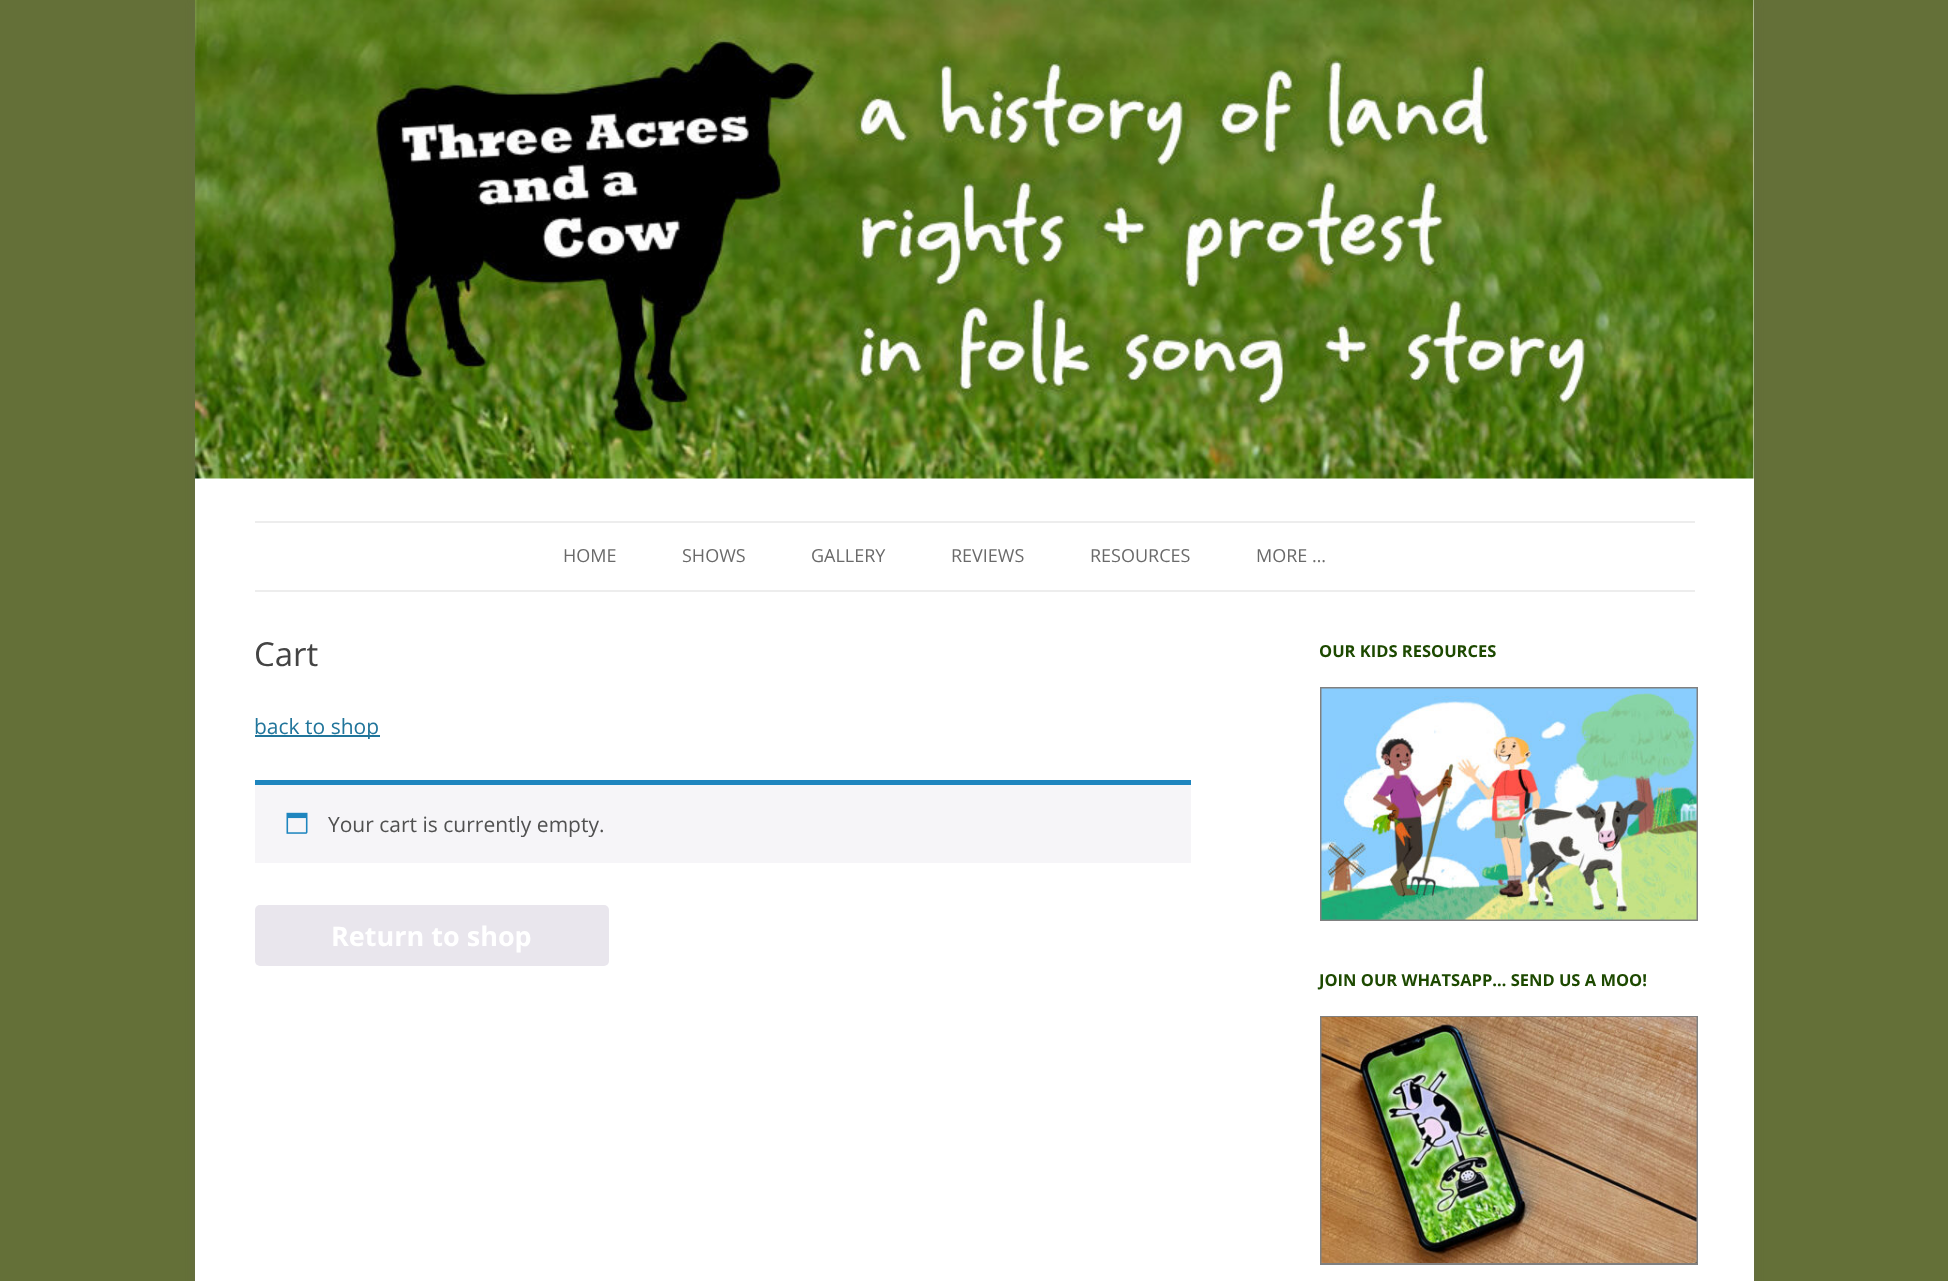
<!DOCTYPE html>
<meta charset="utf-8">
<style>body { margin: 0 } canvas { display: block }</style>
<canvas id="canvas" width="1948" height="1281"></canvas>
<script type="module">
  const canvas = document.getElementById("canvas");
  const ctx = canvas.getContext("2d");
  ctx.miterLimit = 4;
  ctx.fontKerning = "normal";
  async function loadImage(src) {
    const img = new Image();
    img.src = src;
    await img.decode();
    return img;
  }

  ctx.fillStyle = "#647038";
  ctx.fillRect(0, 0, 1948, 1281);
  ctx.fillStyle = "rgba(100, 100, 100, 0.3)";
  ctx.filter = "blur(4.5px)";
  ctx.beginPath();
  ctx.rect(195, 3, 1559, 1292);
  ctx.fill();
  ctx.filter = "none";
  ctx.fillStyle = "#ffffff";
  ctx.fillRect(195, 0, 1559, 1281);
  ctx.drawImage(await loadImage("img1.png"), 195, 0, 1559, 479);
  ctx.fillStyle = "#ededed";
  ctx.fillRect(255, 521, 1440, 2);
  ctx.fillRect(255, 590, 1440, 2);
  ctx.font = "18px Open Sans";
  ctx.fillStyle = "#6a6a6a";
  ctx.fillText("HOME", 563, 562);
  ctx.fillText("SHOWS", 682, 562);
  ctx.fillText("GALLERY", 811, 562);
  ctx.fillText("REVIEWS", 951, 562);
  ctx.fillText("RESOURCES", 1090, 562);
  ctx.fillText("MORE …", 1256, 562);
  ctx.font = "33px Open Sans";
  ctx.fillStyle = "#444444";
  ctx.fillText("Cart", 254, 666);
  ctx.fillStyle = "#21759b";
  ctx.fillRect(255, 735, 125, 2);
  ctx.font = "21px Open Sans";
  ctx.fillText("back to shop", 254, 734);
  ctx.fillStyle = "#f6f5f8";
  ctx.fillRect(255, 785, 936, 78);
  ctx.fillStyle = "#1e85be";
  ctx.fillRect(255, 780, 936, 5);
  ctx.drawImage(await loadImage("img2.png"), 286, 812, 22, 22);
  ctx.fillStyle = "#515151";
  ctx.fillText("Your cart is currently empty.", 328, 832);
  ctx.fillStyle = "#e9e6ed";
  ctx.beginPath();
  ctx.roundRect(255, 905, 354, 61, 5);
  ctx.fill();
  ctx.font = "bold 27px Open Sans";
  ctx.fillStyle = "#ffffff";
  ctx.fillText("Return to shop", 331, 946);
  ctx.font = "bold 16.5px Open Sans";
  ctx.fillStyle = "#1d4900";
  ctx.fillText("OUR KIDS RESOURCES", 1319, 657);
  ctx.strokeStyle = "#808080";
  ctx.lineWidth = 2;
  ctx.strokeRect(1321, 688, 376, 232);
  ctx.drawImage(await loadImage("img3.png"), 1321, 688, 376, 232);
  ctx.fillText("JOIN OUR WHATSAPP… SEND US A MOO!", 1319, 986);
  ctx.strokeRect(1321, 1017, 376, 247);
  ctx.drawImage(await loadImage("img4.png"), 1321, 1017, 376, 246);
</script>
